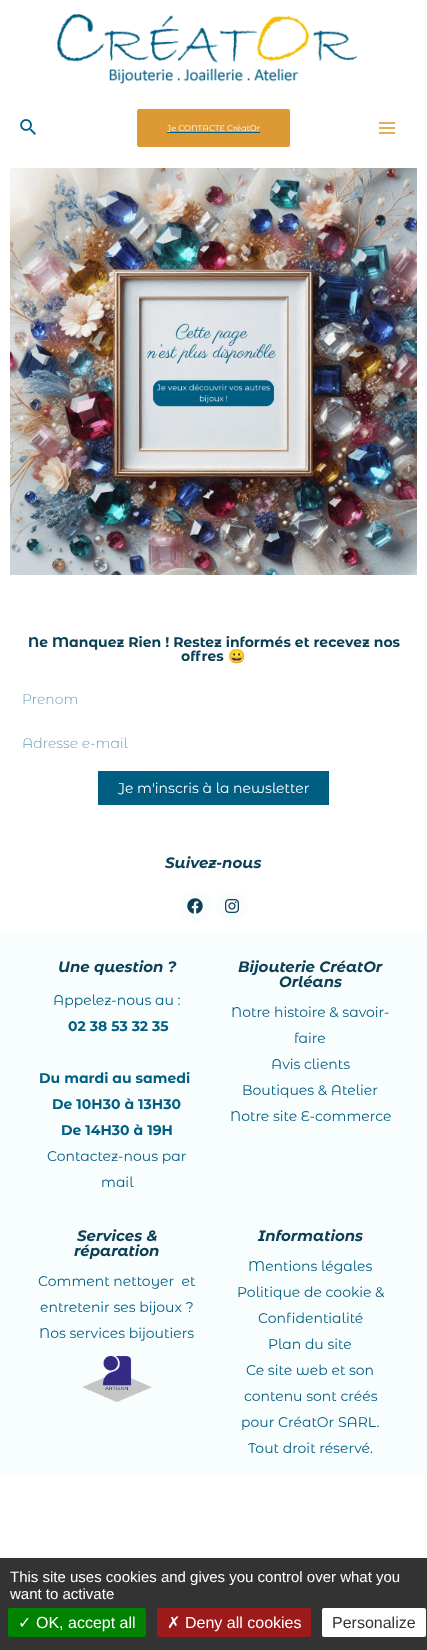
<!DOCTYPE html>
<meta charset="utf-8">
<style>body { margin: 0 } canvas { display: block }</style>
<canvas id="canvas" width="427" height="1650"></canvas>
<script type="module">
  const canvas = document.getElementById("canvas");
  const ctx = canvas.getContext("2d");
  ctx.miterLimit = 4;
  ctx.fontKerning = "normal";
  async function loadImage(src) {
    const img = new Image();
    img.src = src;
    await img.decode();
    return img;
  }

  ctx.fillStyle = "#ffffff";
  ctx.fillRect(0, 0, 427, 1650);
  ctx.drawImage(await loadImage("img1.png"), 57, 14, 300, 70);
  ctx.drawImage(await loadImage("img2.png"), 20, 119, 16, 16);
  ctx.fillStyle = "#dd9933";
  ctx.beginPath();
  ctx.roundRect(137, 109, 153, 38, 2);
  ctx.fill();
  ctx.font = "8.25px Montserrat Alternates";
  ctx.fillStyle = "#ffffff";
  ctx.fillText("Je CONTACTE CréatOr", 167, 131);
  ctx.fillStyle = "#005e83";
  ctx.fillRect(167, 132, 93, 1);
  ctx.drawImage(await loadImage("img3.png"), 378, 122, 18, 12);
  ctx.drawImage(await loadImage("img4.png"), 10, 168, 407, 407);
  ctx.font = "bold 14px Montserrat Alternates";
  ctx.fillStyle = "#0b4056";
  ctx.fillText("Ne Manquez Rien ! Restez informés et recevez nos", 28, 647);
  ctx.fillText("offres", 181, 661);
  ctx.font = "bold 14px Noto Color Emoji";
  ctx.fillText("😀", 228, 661);
  ctx.font = "300 14px Montserrat Alternates";
  ctx.fillStyle = "#669eb5";
  ctx.fillText("Prenom", 22, 704);
  ctx.fillText("Adresse e-mail", 22, 748);
  ctx.fillStyle = "#005e83";
  ctx.fillRect(98, 771, 231, 34);
  ctx.font = "14px Montserrat Alternates";
  ctx.fillStyle = "#ffffff";
  ctx.fillText("Je m'inscris à la newsletter", 118, 793);
  ctx.font = "italic bold 15px Montserrat Alternates";
  ctx.fillStyle = "#0b4056";
  ctx.fillText("Suivez-nous", 165, 868);
  ctx.fillStyle = "#fafdfd";
  ctx.beginPath();
  ctx.arc(195, 906, 16, 0, Math.PI * 2);
  ctx.fill();
  ctx.drawImage(await loadImage("img5.png"), 187, 898, 16, 16);
  ctx.beginPath();
  ctx.arc(232, 906, 16, 0, Math.PI * 2);
  ctx.fill();
  ctx.drawImage(await loadImage("img6.png"), 225, 899, 14, 14);
  ctx.fillStyle = "#f8fdfe";
  ctx.fillRect(0, 932, 427, 544);
  ctx.fillStyle = "#0b4056";
  ctx.fillText("Une question ?", 58, 972);
  ctx.font = "14px Montserrat Alternates";
  ctx.fillStyle = "#005e83";
  ctx.fillText("Appelez-nous au :", 53, 1005);
  ctx.font = "bold 14px Montserrat Alternates";
  ctx.fillText("02 38 53 32 35", 68, 1031);
  ctx.fillText("Du mardi au samedi", 39, 1083);
  ctx.fillText("De 10H30 à 13H30", 52, 1109);
  ctx.fillText("De 14H30 à 19H", 61, 1135);
  ctx.font = "14px Montserrat Alternates";
  ctx.fillText("Contactez-nous par", 47, 1161);
  ctx.fillText("mail", 101, 1187);
  ctx.font = "italic bold 15px Montserrat Alternates";
  ctx.fillStyle = "#0b4056";
  ctx.fillText("Bijouterie CréatOr", 238, 972);
  ctx.fillText("Orléans", 279, 987);
  ctx.font = "14px Montserrat Alternates";
  ctx.fillStyle = "#005e83";
  ctx.fillText("Notre histoire & savoir-", 231, 1017);
  ctx.fillText("faire", 294, 1043);
  ctx.fillText("Avis clients", 271, 1069);
  ctx.fillText("Boutiques & Atelier", 242, 1095);
  ctx.fillText("Notre site E-commerce", 230, 1121);
  ctx.font = "italic bold 15px Montserrat Alternates";
  ctx.fillStyle = "#0b4056";
  ctx.fillText("Services &", 77, 1241);
  ctx.fillText("réparation", 74, 1256);
  ctx.font = "14px Montserrat Alternates";
  ctx.fillStyle = "#005e83";
  ctx.fillText("Comment nettoyer  et", 38, 1286);
  ctx.fillText("entretenir ses bijoux ?", 40, 1312);
  ctx.fillText("Nos services bijoutiers", 39, 1338);
  ctx.drawImage(await loadImage("img7.png"), 82, 1356, 70, 46);
  ctx.font = "italic bold 15px Montserrat Alternates";
  ctx.fillStyle = "#0b4056";
  ctx.fillText("Informations", 258, 1241);
  ctx.font = "14px Montserrat Alternates";
  ctx.fillStyle = "#005e83";
  ctx.fillText("Mentions légales", 248, 1271);
  ctx.fillText("Politique de cookie &", 237, 1297);
  ctx.fillText("Confidentialité", 258, 1323);
  ctx.fillText("Plan du site", 268, 1349);
  ctx.fillText("Ce site web et son", 246, 1375);
  ctx.fillText("contenu sont créés", 244, 1401);
  ctx.fillText("pour CréatOr SARL.", 241, 1427);
  ctx.fillText("Tout droit réservé.", 248, 1453);
  ctx.fillStyle = "#333333";
  ctx.fillRect(0, 1558, 427, 92);
  ctx.font = "15px Liberation Sans";
  ctx.fillStyle = "#ffffff";
  ctx.fillText("This site uses cookies and gives you control over what you", 10, 1582);
  ctx.fillText("want to activate", 10, 1599);
  ctx.fillStyle = "#008300";
  ctx.beginPath();
  ctx.roundRect(8, 1608, 138, 29, 2);
  ctx.fill();
  ctx.font = "16px DejaVu Sans";
  ctx.fillStyle = "#ffffff";
  ctx.fillText("✓", 18, 1628);
  ctx.font = "16px Liberation Sans";
  ctx.fillText("OK, accept all", 36, 1628);
  ctx.fillStyle = "#9c1a1a";
  ctx.beginPath();
  ctx.roundRect(157, 1608, 154, 29, 2);
  ctx.fill();
  ctx.font = "16px DejaVu Sans";
  ctx.fillStyle = "#ffffff";
  ctx.fillText("✗", 167, 1628);
  ctx.font = "16px Liberation Sans";
  ctx.fillText("Deny all cookies", 185, 1628);
  ctx.beginPath();
  ctx.roundRect(322, 1608, 104, 29, 2);
  ctx.fill();
  ctx.fillStyle = "#333333";
  ctx.fillText("Personalize", 332, 1628);
</script>
